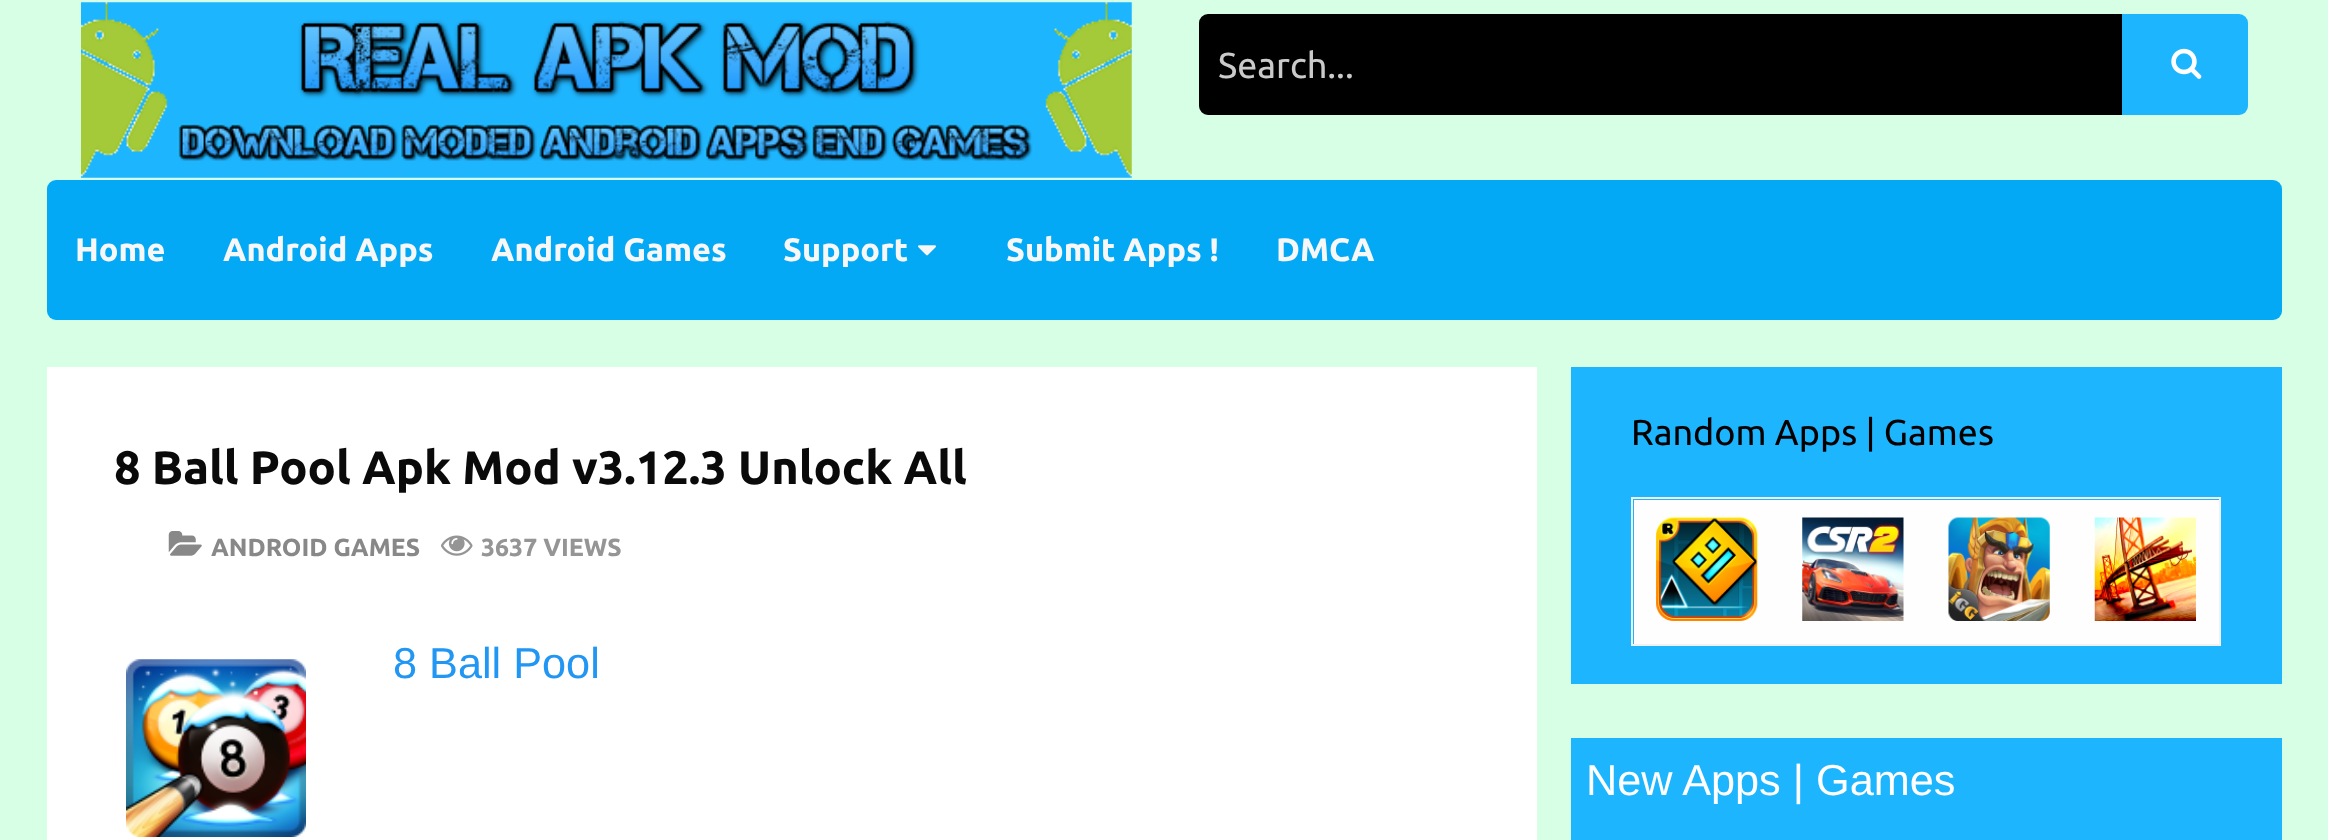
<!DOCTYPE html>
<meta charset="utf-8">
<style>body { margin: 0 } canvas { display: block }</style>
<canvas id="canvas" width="2328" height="840"></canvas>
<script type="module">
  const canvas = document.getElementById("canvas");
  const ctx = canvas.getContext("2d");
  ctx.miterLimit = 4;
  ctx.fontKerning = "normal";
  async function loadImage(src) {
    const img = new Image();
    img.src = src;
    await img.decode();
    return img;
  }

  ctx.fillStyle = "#d6ffe5";
  ctx.fillRect(0, 0, 2328, 840);
  ctx.drawImage(await loadImage("img1.png"), 81, 2, 1051, 176);
  ctx.fillStyle = "#000000";
  ctx.beginPath();
  ctx.roundRect(1200, 15, 921, 99, [8, 0, 0, 8]);
  ctx.fill();
  ctx.strokeStyle = "#000000";
  ctx.lineWidth = 2;
  ctx.stroke();
  ctx.font = "36px Ubuntu";
  ctx.fillStyle = "#cacaca";
  ctx.fillText("Search...", 1218, 78);
  ctx.fillStyle = "#1eb5ff";
  ctx.beginPath();
  ctx.roundRect(2122, 14, 126, 101, [0, 9, 9, 0]);
  ctx.fill();
  ctx.drawImage(await loadImage("img2.png"), 2171, 48, 31, 31);
  ctx.fillStyle = "#03a9f4";
  ctx.beginPath();
  ctx.roundRect(47, 180, 2235, 140, 9);
  ctx.fill();
  ctx.font = "bold 32.5px Ubuntu";
  ctx.fillStyle = "#f7f7f7";
  ctx.fillText("Home", 75, 261);
  ctx.fillText("Android Apps", 223, 261);
  ctx.fillText("Android Games", 491, 261);
  ctx.fillText("Support", 783, 261);
  ctx.drawImage(await loadImage("img3.png"), 918, 245, 18, 11);
  ctx.fillText("Submit Apps !", 1006, 261);
  ctx.fillText("DMCA", 1276, 261);
  ctx.fillStyle = "#ffffff";
  ctx.fillRect(47, 367, 1490, 473);
  ctx.font = "bold 46.75px Ubuntu";
  ctx.fillStyle = "#0a0a0a";
  ctx.fillText("8 Ball Pool Apk Mod v3.12.3 Unlock All", 114, 484);
  ctx.drawImage(await loadImage("img4.png"), 168, 531, 34, 25);
  ctx.font = "bold 24.75px Ubuntu";
  ctx.fillStyle = "#888888";
  ctx.fillText("ANDROID GAMES", 211, 556);
  ctx.drawImage(await loadImage("img5.png"), 441, 535, 32, 21);
  ctx.fillStyle = "#959595";
  ctx.fillText("3637 VIEWS", 481, 556);
  ctx.drawImage(await loadImage("img6.png"), 126, 659, 180, 178);
  ctx.font = "43.25px Liberation Sans";
  ctx.fillStyle = "#2196f3";
  ctx.fillText("8 Ball Pool", 393, 678);
  ctx.fillStyle = "#1eb5ff";
  ctx.fillRect(1571, 367, 711, 317);
  ctx.font = "36px Ubuntu";
  ctx.fillStyle = "#000000";
  ctx.fillText("Random Apps | Games", 1631, 445);
  ctx.fillStyle = "#fefefe";
  ctx.fillRect(1634, 500, 585, 144);
  ctx.fillStyle = "#f1f1f1";
  ctx.fillRect(1631, 497, 590, 2);
  ctx.fillRect(2219, 497, 2, 149);
  ctx.fillRect(1631, 644, 590, 2);
  ctx.fillRect(1631, 497, 2, 149);
  ctx.drawImage(await loadImage("img7.png"), 1656, 517, 102, 104);
  ctx.drawImage(await loadImage("img8.png"), 1802, 517, 102, 104);
  ctx.drawImage(await loadImage("img9.png"), 1948, 517, 102, 104);
  ctx.drawImage(await loadImage("img10.png"), 2094, 517, 102, 104);
  ctx.fillStyle = "#1eb5ff";
  ctx.fillRect(1571, 738, 711, 102);
  ctx.font = "43.25px Liberation Sans";
  ctx.fillStyle = "#ffffff";
  ctx.fillText("New Apps | Games", 1586, 795);
</script>
